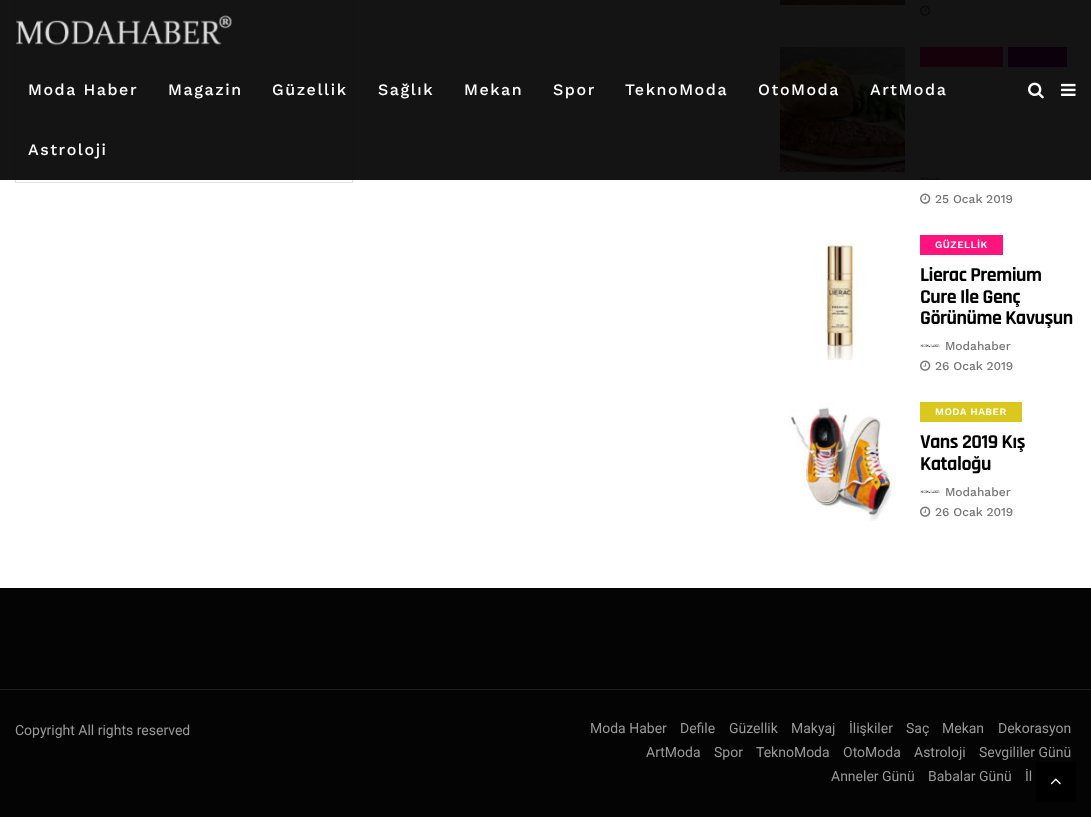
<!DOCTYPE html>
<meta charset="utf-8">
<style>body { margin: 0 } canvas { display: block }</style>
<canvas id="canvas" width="1091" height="817"></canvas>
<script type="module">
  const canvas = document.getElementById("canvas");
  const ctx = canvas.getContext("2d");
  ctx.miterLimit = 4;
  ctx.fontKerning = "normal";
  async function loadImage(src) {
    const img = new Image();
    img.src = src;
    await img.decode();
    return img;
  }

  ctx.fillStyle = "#ffffff";
  ctx.fillRect(0, 0, 1091, 817);
  ctx.strokeStyle = "#dce0e0";
  ctx.strokeRect(15.5, -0.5, 337, 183);
  ctx.drawImage(await loadImage("img4.png"), 46, 35, 20, 3);
  ctx.drawImage(await loadImage("img5.png"), 147, 31, 11, 11);
  ctx.drawImage(await loadImage("img6.png"), 780, 0, 125, 5);
  ctx.drawImage(await loadImage("img5.png"), 920, 5, 11, 11);
  ctx.drawImage(await loadImage("img7.png"), 780, 47, 125, 125);
  ctx.fillStyle = "#ff147d";
  ctx.fillRect(920, 47, 83, 20);
  ctx.fillStyle = "#8a0091";
  ctx.fillRect(1008, 47, 59, 20);
  ctx.drawImage(await loadImage("img8.png"), 920, 177, 20, 3);
  ctx.fillStyle = "rgba(0, 0, 0, 0.92)";
  ctx.fillRect(0, 0, 1091, 180);
  ctx.drawImage(await loadImage("img1.png"), 16, 15, 216, 31);
  ctx.letterSpacing = "1.6px";
  ctx.font = "500 16px Work Sans";
  ctx.fillStyle = "#ffffff";
  ctx.fillText("Moda Haber", 28, 95);
  ctx.fillText("Magazin", 168, 95);
  ctx.fillText("Güzellik", 272, 95);
  ctx.fillText("Sağlık", 378, 95);
  ctx.fillText("Mekan", 464, 95);
  ctx.fillText("Spor", 553, 95);
  ctx.fillText("TeknoModa", 625, 95);
  ctx.fillText("OtoModa", 758, 95);
  ctx.fillText("ArtModa", 870, 95);
  ctx.fillText("Astroloji", 28, 155);
  ctx.drawImage(await loadImage("img2.png"), 1028, 82, 16, 17);
  ctx.drawImage(await loadImage("img3.png"), 1061, 83, 15, 13);
  ctx.drawImage(await loadImage("img5.png"), 920, 193, 11, 11);
  ctx.letterSpacing = "0px";
  ctx.font = "500 12px Work Sans";
  ctx.fillStyle = "#777777";
  ctx.fillText("25 Ocak 2019", 935, 203);
  ctx.drawImage(await loadImage("img9.png"), 826, 242, 31, 118);
  ctx.fillStyle = "#ff147d";
  ctx.fillRect(920, 235, 83, 20);
  ctx.letterSpacing = "0.5px";
  ctx.font = "600 10px Work Sans";
  ctx.fillStyle = "#ffffff";
  ctx.fillText("GÜZELLİK", 935, 248);
  ctx.letterSpacing = "-0.5px";
  ctx.font = "bold 20px Rajdhani";
  ctx.fillStyle = "#000000";
  ctx.fillText("Lierac Premium", 920, 281);
  ctx.fillText("Cure Ile Genç", 920, 303);
  ctx.fillText("Görünüme Kavuşun", 920, 324);
  ctx.drawImage(await loadImage("img8.png"), 920, 344, 20, 3);
  ctx.letterSpacing = "0px";
  ctx.font = "500 12px Work Sans";
  ctx.fillStyle = "#777777";
  ctx.fillText("Modahaber", 945, 350);
  ctx.drawImage(await loadImage("img5.png"), 920, 360, 11, 11);
  ctx.fillText("26 Ocak 2019", 935, 370);
  ctx.drawImage(await loadImage("img10.png"), 788, 402, 107, 119);
  ctx.fillStyle = "#dbc81e";
  ctx.fillRect(920, 402, 102, 20);
  ctx.letterSpacing = "0.5px";
  ctx.font = "600 10px Work Sans";
  ctx.fillStyle = "#ffffff";
  ctx.fillText("MODA HABER", 935, 415);
  ctx.letterSpacing = "-0.5px";
  ctx.font = "bold 20px Rajdhani";
  ctx.fillStyle = "#000000";
  ctx.fillText("Vans 2019 Kış", 920, 448);
  ctx.fillText("Kataloğu", 920, 470);
  ctx.drawImage(await loadImage("img8.png"), 920, 490, 20, 3);
  ctx.letterSpacing = "0px";
  ctx.font = "500 12px Work Sans";
  ctx.fillStyle = "#777777";
  ctx.fillText("Modahaber", 945, 496);
  ctx.drawImage(await loadImage("img5.png"), 920, 506, 11, 11);
  ctx.fillText("26 Ocak 2019", 935, 516);
  ctx.fillStyle = "#040404";
  ctx.fillRect(0, 588, 1091, 229);
  ctx.fillStyle = "#202020";
  ctx.fillRect(0, 689, 1091, 1);
  ctx.font = "14px Roboto";
  ctx.fillStyle = "#999999";
  ctx.fillText("Copyright All rights reserved", 15, 735);
  ctx.fillText("Moda Haber", 590, 733);
  ctx.fillText("Defile", 680, 733);
  ctx.fillText("Güzellik", 729, 733);
  ctx.fillText("Makyaj", 791, 733);
  ctx.fillText("İlişkiler", 849, 733);
  ctx.fillText("Saç", 906, 733);
  ctx.fillText("Mekan", 942, 733);
  ctx.fillText("Dekorasyon", 998, 733);
  ctx.fillText("ArtModa", 646, 757);
  ctx.fillText("Spor", 714, 757);
  ctx.fillText("TeknoModa", 756, 757);
  ctx.fillText("OtoModa", 843, 757);
  ctx.fillText("Astroloji", 914, 757);
  ctx.fillText("Sevgililer Günü", 979, 757);
  ctx.fillText("Anneler Günü", 831, 781);
  ctx.fillText("Babalar Günü", 928, 781);
  ctx.fillText("İl", 1025, 781);
  ctx.fillStyle = "rgba(0, 0, 0, 0.8)";
  ctx.fillRect(1036, 762, 40, 40);
  ctx.drawImage(await loadImage("img11.png"), 1050, 778, 11, 7);
</script>
